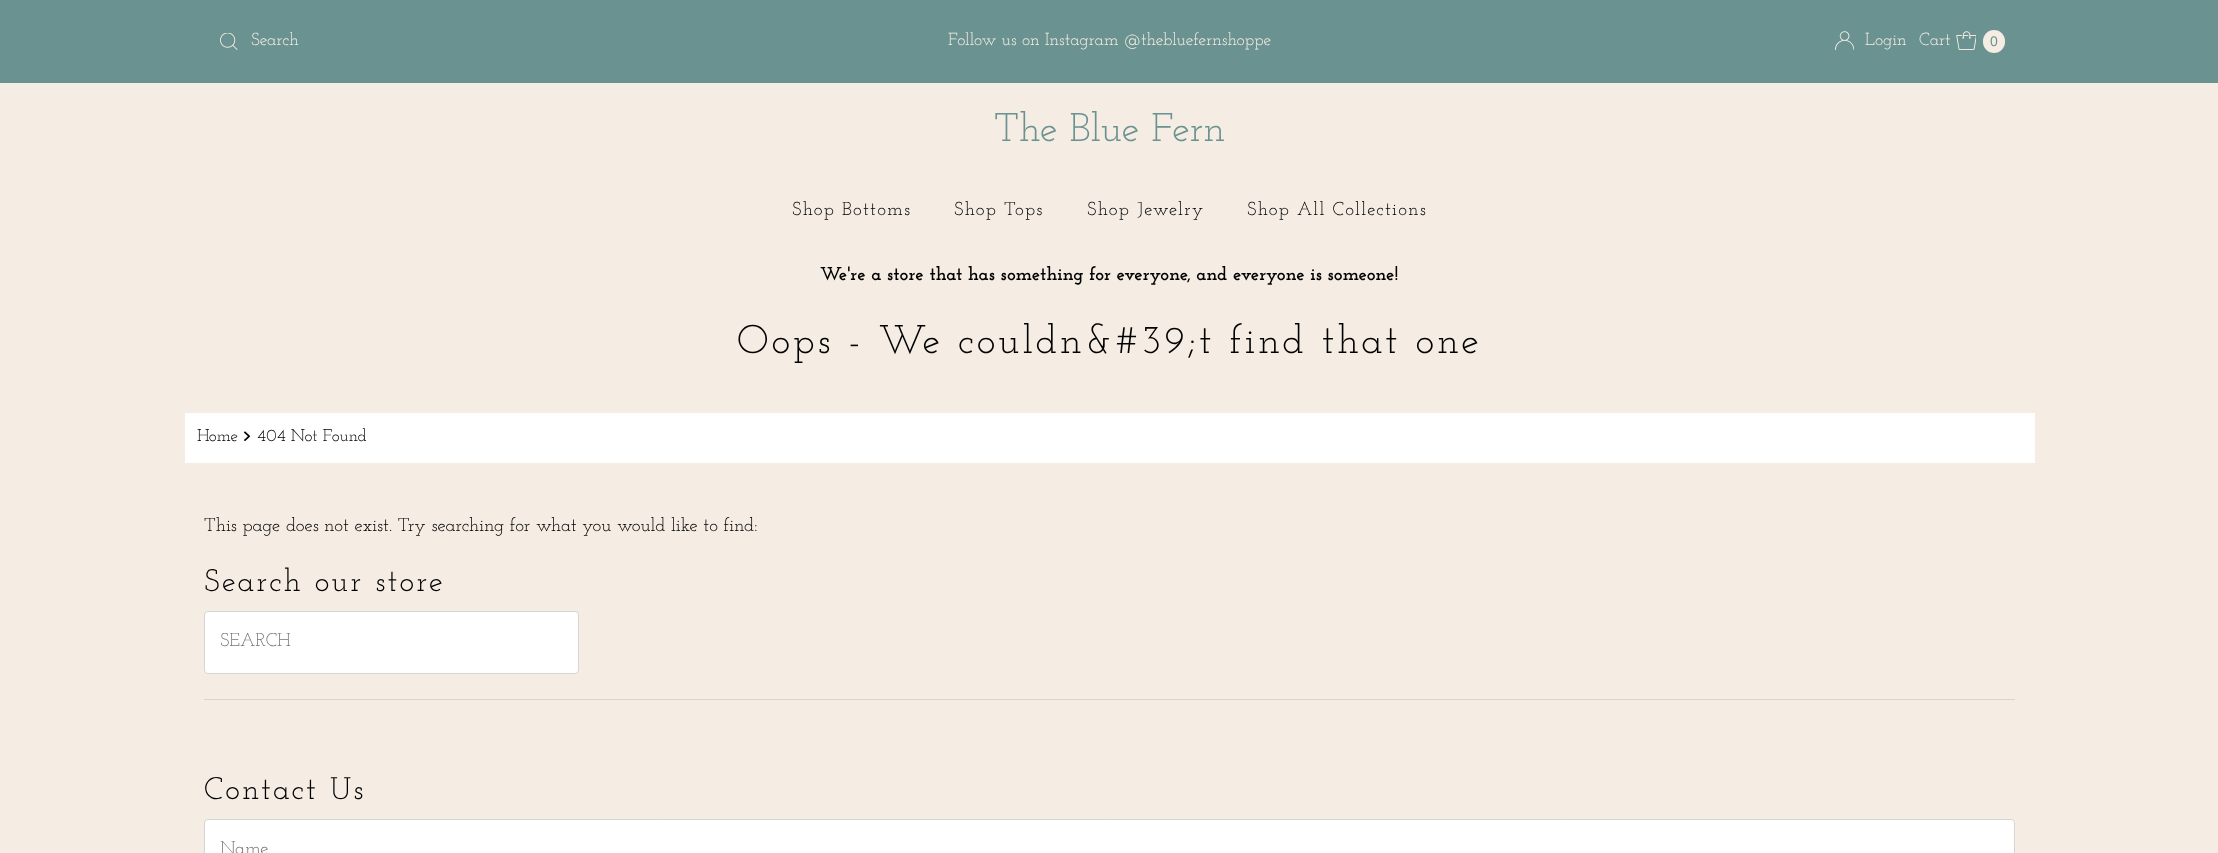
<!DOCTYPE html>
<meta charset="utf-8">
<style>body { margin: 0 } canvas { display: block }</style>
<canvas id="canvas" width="2218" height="853"></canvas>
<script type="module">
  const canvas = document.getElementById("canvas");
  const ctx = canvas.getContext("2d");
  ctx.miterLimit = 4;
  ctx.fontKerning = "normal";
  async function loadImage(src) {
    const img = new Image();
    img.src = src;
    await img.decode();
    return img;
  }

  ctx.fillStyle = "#f5ede4";
  ctx.fillRect(0, 0, 2218, 853);
  ctx.fillStyle = "#6a9290";
  ctx.fillRect(0, 0, 2218, 83);
  ctx.drawImage(await loadImage("img1.png"), 220, 33, 18, 17);
  ctx.font = "17.5px Josefin Slab";
  ctx.fillStyle = "#f5ede4";
  ctx.fillText("Search", 251, 45);
  ctx.fillText("Follow us on Instagram @thebluefernshoppe", 948, 45);
  ctx.drawImage(await loadImage("img2.png"), 1835, 31, 19, 19);
  ctx.fillText("Login", 1865, 45);
  ctx.fillText("Cart", 1919, 45);
  ctx.drawImage(await loadImage("img3.png"), 1956, 31, 20, 19);
  ctx.beginPath();
  ctx.roundRect(1983, 30, 22, 23, 11);
  ctx.fill();
  ctx.font = "14px Liberation Sans";
  ctx.fillStyle = "#6a9290";
  ctx.fillText("0", 1990, 46);
  ctx.font = "40px Josefin Slab";
  ctx.fillText("The Blue Fern", 994, 141);
  ctx.letterSpacing = "1.25px";
  ctx.font = "18.75px Josefin Slab";
  ctx.fillStyle = "#000000";
  ctx.fillText("Shop Bottoms", 792, 215);
  ctx.fillText("Shop Tops", 954, 215);
  ctx.fillText("Shop Jewelry", 1087, 215);
  ctx.fillText("Shop All Collections", 1247, 215);
  ctx.letterSpacing = "0px";
  ctx.font = "bold 18.75px Josefin Slab";
  ctx.fillText("We're a store that has something for everyone, and everyone is someone!", 820, 280);
  ctx.letterSpacing = "3px";
  ctx.font = "40px Josefin Slab";
  ctx.fillText("Oops - We couldn&#39;t find that one", 737, 353);
  ctx.fillStyle = "#ffffff";
  ctx.fillRect(185, 413, 1850, 50);
  ctx.letterSpacing = "0px";
  ctx.font = "17px Josefin Slab";
  ctx.fillStyle = "#000000";
  ctx.fillText("Home", 197, 441);
  ctx.drawImage(await loadImage("img4.png"), 244, 431, 6, 10);
  ctx.fillText("404 Not Found", 257, 441);
  ctx.font = "18.75px Josefin Slab";
  ctx.fillText("This page does not exist. Try searching for what you would like to find:", 204, 531);
  ctx.fillStyle = "#d5d5d5";
  ctx.fillRect(204, 699, 1811, 1);
  ctx.letterSpacing = "2.3px";
  ctx.font = "31.25px Josefin Slab";
  ctx.fillStyle = "#000000";
  ctx.fillText("Search our store", 204, 591);
  ctx.fillStyle = "#ffffff";
  ctx.beginPath();
  ctx.roundRect(204.5, 611.5, 374, 62, 3.5);
  ctx.fill();
  ctx.strokeStyle = "#d5d5d5";
  ctx.stroke();
  ctx.save();
  ctx.beginPath();
  ctx.rect(208, 633, 367, 18);
  ctx.clip();
  ctx.letterSpacing = "0px";
  ctx.font = "18.75px Josefin Slab";
  ctx.fillStyle = "#757575";
  ctx.fillText("SEARCH", 220, 646);
  ctx.restore();
  ctx.fillStyle = "#000000";
  ctx.fillText("Contact Us", 204, 799);
  ctx.fillStyle = "#ffffff";
  ctx.beginPath();
  ctx.roundRect(204.5, 819.5, 1810, 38, 3.5);
  ctx.fill();
  ctx.stroke();
  ctx.letterSpacing = "0px";
  ctx.font = "18.75px Josefin Slab";
  ctx.fillStyle = "#757575";
  ctx.fillText("Name", 220, 854);
</script>
